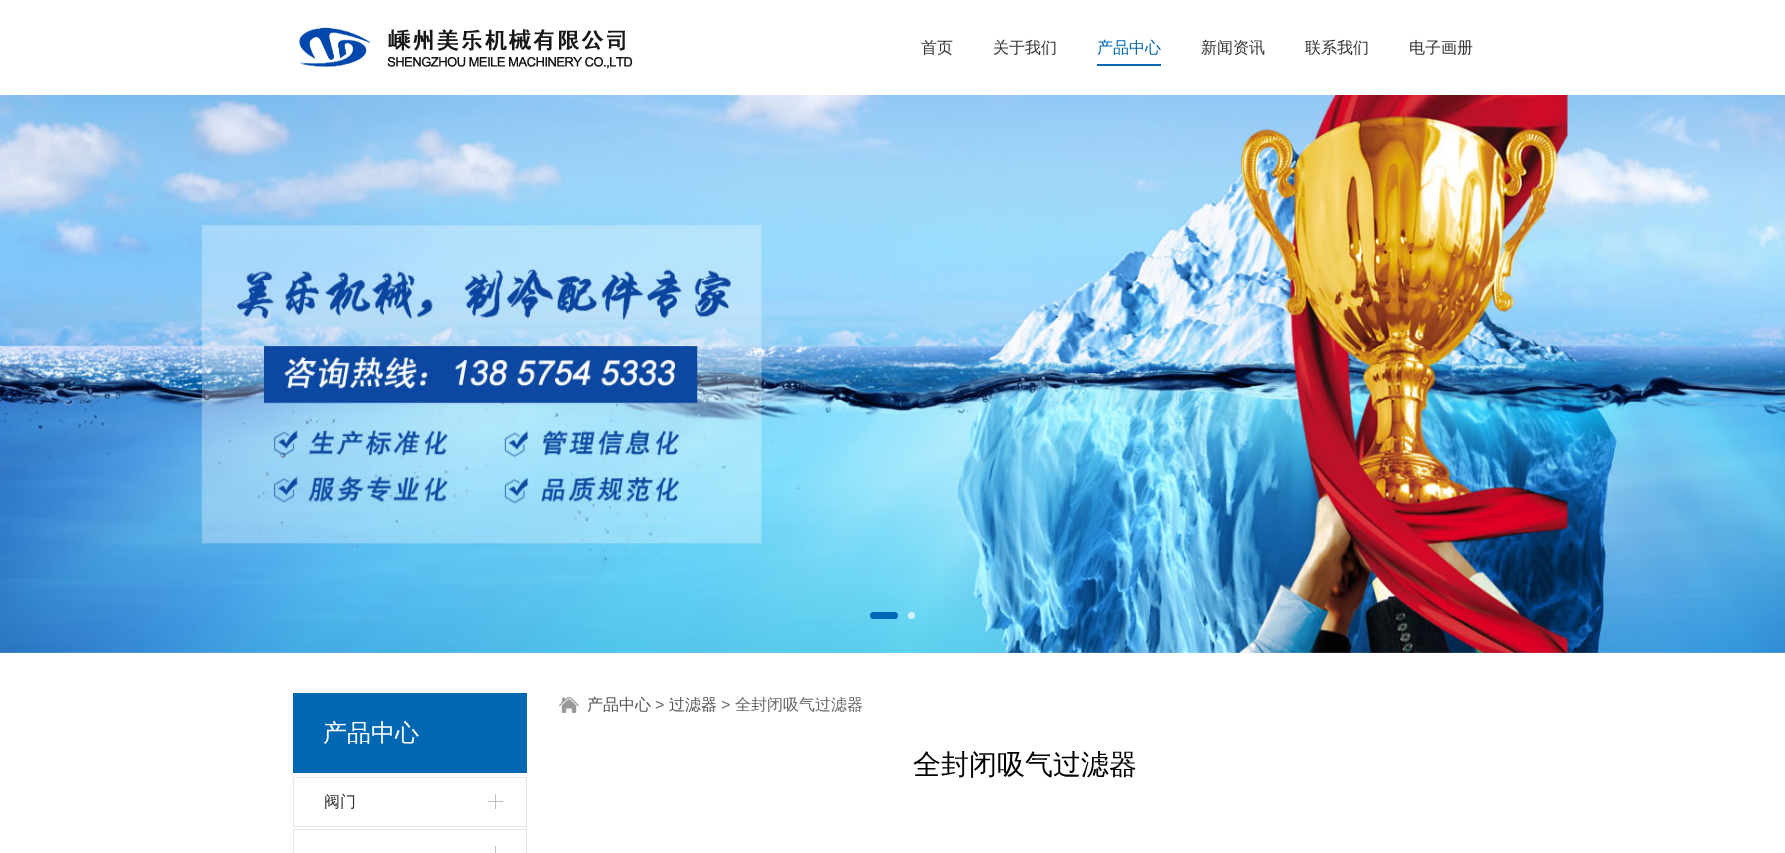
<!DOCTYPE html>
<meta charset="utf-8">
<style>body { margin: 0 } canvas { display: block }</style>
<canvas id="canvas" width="1785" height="853"></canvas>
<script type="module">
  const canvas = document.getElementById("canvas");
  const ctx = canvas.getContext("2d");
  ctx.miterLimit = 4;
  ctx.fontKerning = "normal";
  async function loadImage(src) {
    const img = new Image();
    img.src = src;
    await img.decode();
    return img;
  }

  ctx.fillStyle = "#ffffff";
  ctx.fillRect(0, 0, 1785, 853);
  ctx.drawImage(await loadImage("img1.png"), 299, 27, 334, 42);
  ctx.font = "500 16px WenQuanYi Zen Hei";
  ctx.fillStyle = "#333333";
  ctx.fillText("首页", 921, 53);
  ctx.fillText("关于我们", 993, 53);
  ctx.fillStyle = "#0067b3";
  ctx.fillText("产品中心", 1097, 53);
  ctx.fillRect(1097, 64, 64, 2);
  ctx.fillStyle = "#333333";
  ctx.fillText("新闻资讯", 1201, 53);
  ctx.fillText("联系我们", 1305, 53);
  ctx.fillText("电子画册", 1409, 53);
  ctx.drawImage(await loadImage("img2.png"), 0, 95, 1785, 558);
  ctx.fillStyle = "#0067b3";
  ctx.beginPath();
  ctx.roundRect(870, 612, 28, 7, 3.5);
  ctx.fill();
  ctx.fillStyle = "#d2f3fb";
  ctx.beginPath();
  ctx.arc(911.5, 615.5, 3.5, 0, Math.PI * 2);
  ctx.fill();
  ctx.fillStyle = "#0067b3";
  ctx.fillRect(293, 693, 234, 80);
  ctx.font = "500 24px WenQuanYi Zen Hei";
  ctx.fillStyle = "#ffffff";
  ctx.fillText("产品中心", 323, 741);
  ctx.strokeStyle = "#e5e5e5";
  ctx.strokeRect(293.5, 777.5, 233, 49);
  ctx.font = "500 16px WenQuanYi Zen Hei";
  ctx.fillStyle = "#333333";
  ctx.fillText("阀门", 324, 807);
  ctx.drawImage(await loadImage("img3.png"), 488, 794, 15, 15);
  ctx.strokeRect(293.5, 829.5, 233, 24);
  ctx.fillStyle = "#c0c0c0";
  ctx.fillRect(495, 846, 1, 7);
  ctx.drawImage(await loadImage("img4.png"), 559, 697, 20, 16);
  ctx.fillStyle = "#555555";
  ctx.fillText("产品中心", 587, 710);
  ctx.font = "16px Liberation Sans";
  ctx.fillStyle = "#666666";
  ctx.fillText(">", 655, 710);
  ctx.font = "500 16px WenQuanYi Zen Hei";
  ctx.fillStyle = "#555555";
  ctx.fillText("过滤器", 669, 710);
  ctx.font = "16px Liberation Sans";
  ctx.fillStyle = "#666666";
  ctx.fillText(">", 721, 710);
  ctx.font = "500 16px WenQuanYi Zen Hei";
  ctx.fillText("全封闭吸气过滤器", 735, 710);
  ctx.font = "500 28px WenQuanYi Zen Hei";
  ctx.fillStyle = "#000000";
  ctx.fillText("全封闭吸气过滤器", 913, 774);
</script>
